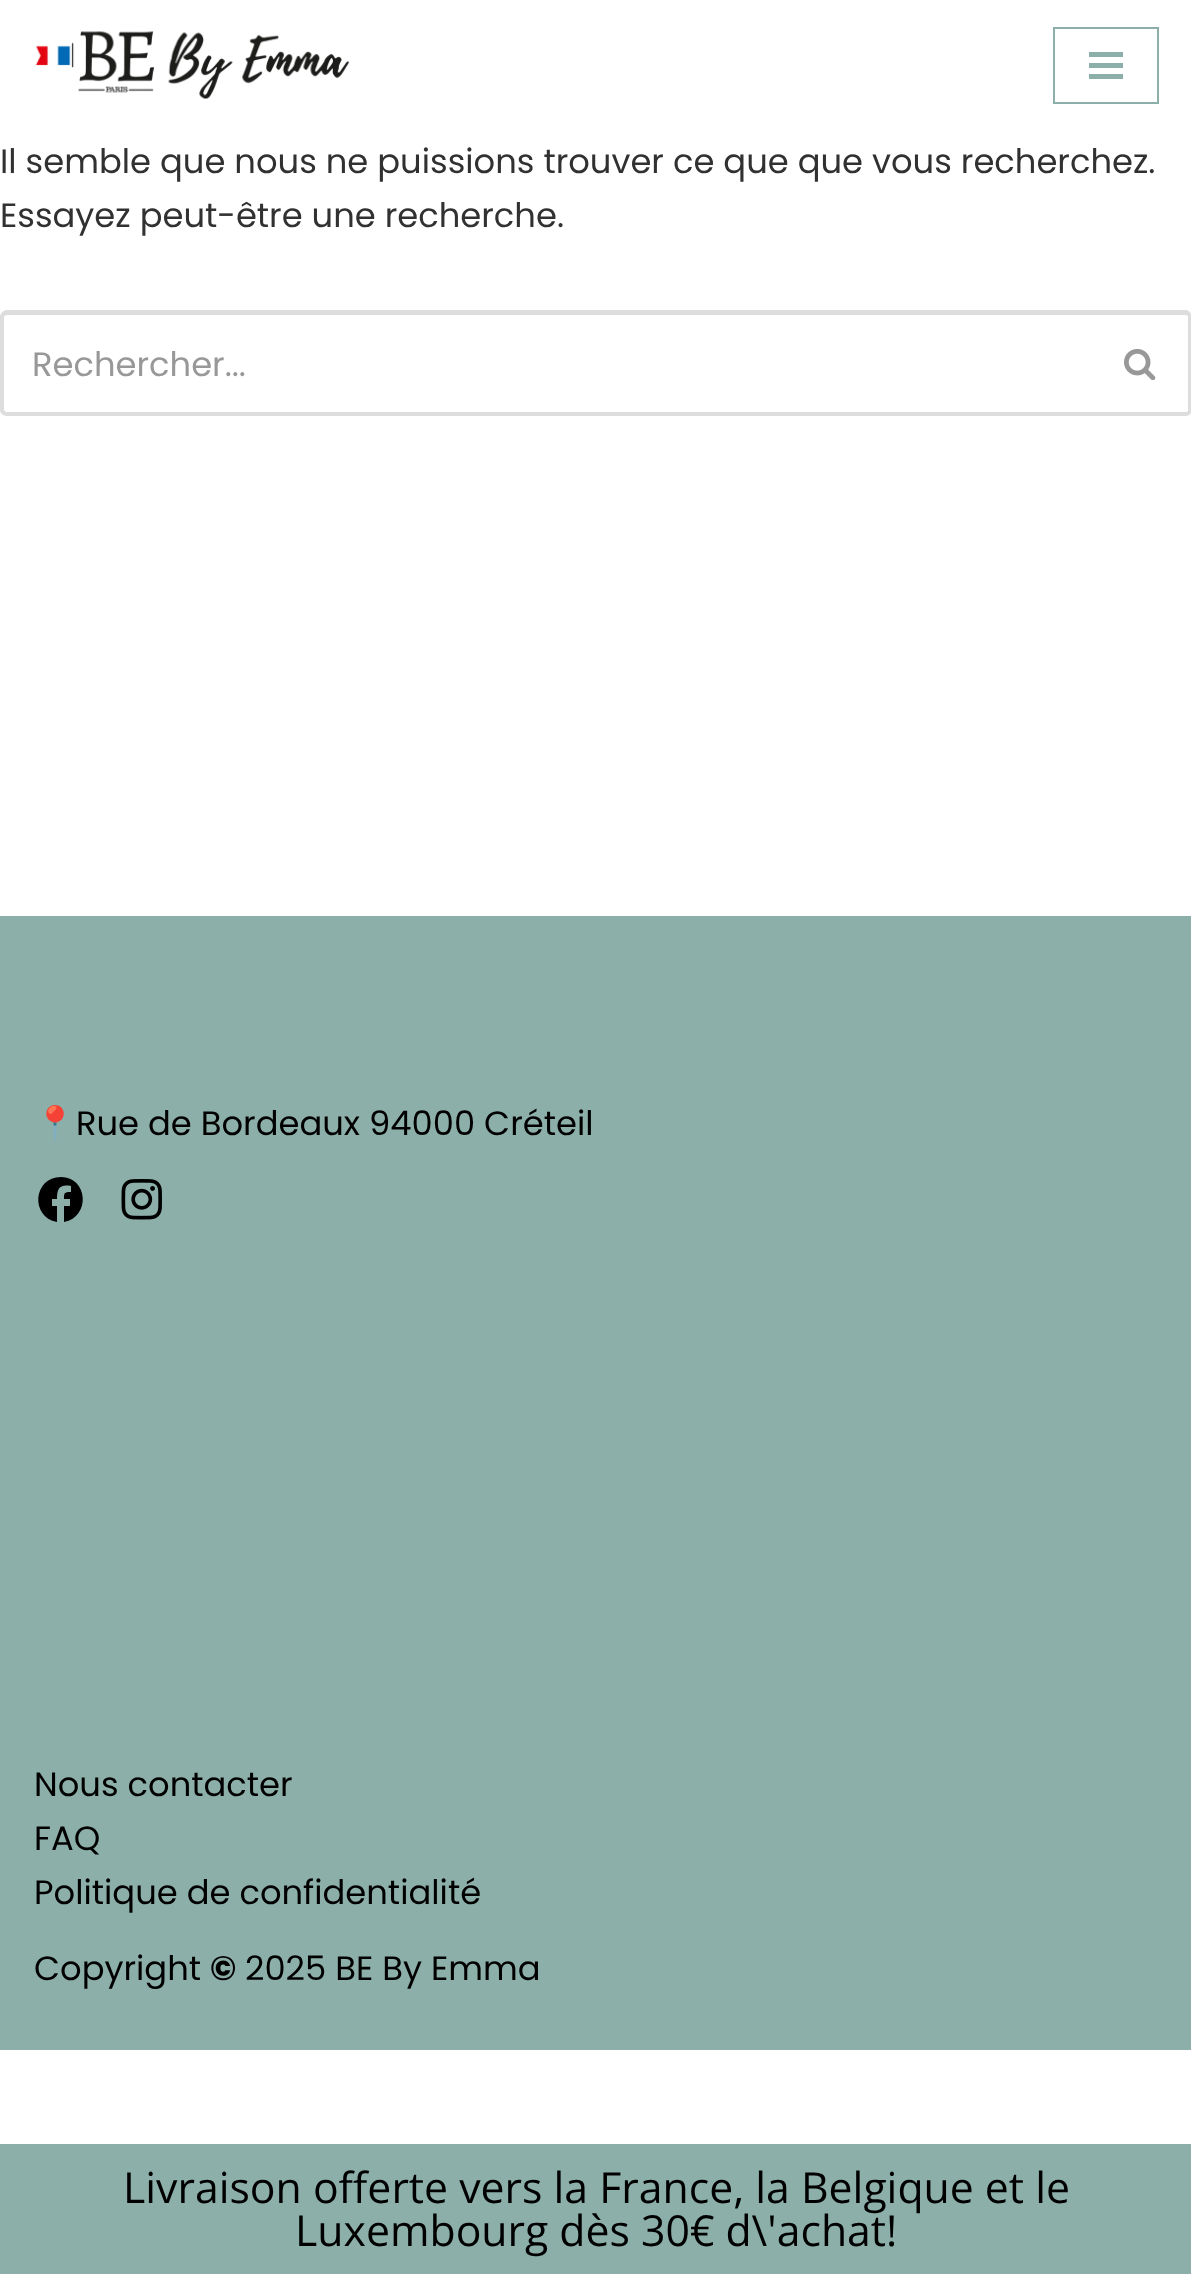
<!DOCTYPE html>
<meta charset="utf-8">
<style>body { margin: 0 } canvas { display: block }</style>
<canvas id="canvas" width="1191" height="2274"></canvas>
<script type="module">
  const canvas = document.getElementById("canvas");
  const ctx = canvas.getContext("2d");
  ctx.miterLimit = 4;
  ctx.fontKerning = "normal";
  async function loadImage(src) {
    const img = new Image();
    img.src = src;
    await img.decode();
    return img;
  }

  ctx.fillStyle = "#ffffff";
  ctx.fillRect(0, 0, 1191, 2274);
  ctx.drawImage(await loadImage("img1.png"), 35, 31, 314, 68);
  ctx.strokeStyle = "#8cafa9";
  ctx.lineWidth = 2;
  ctx.strokeRect(1054, 28, 104, 75);
  ctx.fillStyle = "#8cafa9";
  ctx.fillRect(1089, 52, 34, 5);
  ctx.fillRect(1089, 63, 34, 5);
  ctx.fillRect(1089, 74, 34, 5);
  ctx.font = "33.75px Poppins";
  ctx.fillStyle = "#323131";
  ctx.fillText("Il semble que nous ne puissions trouver ce que que vous recherchez.", 0, 173);
  ctx.fillText("Essayez peut-être une recherche.", 0, 227);
  ctx.fillStyle = "#dddddd";
  ctx.beginPath();
  ctx.moveTo(7, 310);
  ctx.lineTo(1091, 310);
  ctx.lineTo(1091, 416);
  ctx.lineTo(7, 416);
  ctx.bezierCurveTo(3, 416, 0, 413, 0, 410);
  ctx.lineTo(0, 317);
  ctx.bezierCurveTo(0, 314, 3, 310, 7, 310);
  ctx.closePath();
  ctx.moveTo(7, 315);
  ctx.lineTo(1091, 315);
  ctx.lineTo(1091, 412);
  ctx.lineTo(7, 412);
  ctx.bezierCurveTo(6, 412, 4, 411, 4, 410);
  ctx.lineTo(4, 317);
  ctx.bezierCurveTo(4, 316, 6, 315, 7, 315);
  ctx.closePath();
  ctx.fill("evenodd");
  ctx.fillStyle = "#999898";
  ctx.fillText("Rechercher...", 32, 376);
  ctx.fillStyle = "#dddddd";
  ctx.beginPath();
  ctx.moveTo(1091, 310);
  ctx.lineTo(1186, 310);
  ctx.bezierCurveTo(1189, 310, 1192, 314, 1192, 317);
  ctx.lineTo(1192, 410);
  ctx.bezierCurveTo(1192, 413, 1189, 416, 1186, 416);
  ctx.lineTo(1091, 416);
  ctx.closePath();
  ctx.moveTo(1091, 315);
  ctx.lineTo(1186, 315);
  ctx.bezierCurveTo(1187, 315, 1188, 316, 1188, 317);
  ctx.lineTo(1188, 410);
  ctx.bezierCurveTo(1188, 411, 1187, 412, 1186, 412);
  ctx.lineTo(1091, 412);
  ctx.closePath();
  ctx.fill("evenodd");
  ctx.drawImage(await loadImage("img2.png"), 1124, 348, 32, 32);
  ctx.fillStyle = "#8cafa9";
  ctx.fillRect(0, 916, 1191, 1134);
  ctx.font = "33.75px Noto Color Emoji";
  ctx.fillStyle = "#000000";
  ctx.fillText("📍", 34, 1135);
  ctx.font = "33.75px Poppins";
  ctx.fillText("Rue de Bordeaux 94000 Créteil", 76, 1135);
  ctx.beginPath();
  ctx.moveTo(61, 1177);
  ctx.bezierCurveTo(33, 1177, 30, 1217, 57, 1222);
  ctx.lineTo(57, 1206);
  ctx.lineTo(52, 1206);
  ctx.lineTo(52, 1199);
  ctx.lineTo(57, 1199);
  ctx.bezierCurveTo(57, 1189, 59, 1184, 71, 1186);
  ctx.lineTo(71, 1192);
  ctx.bezierCurveTo(64, 1192, 64, 1193, 64, 1199);
  ctx.lineTo(70, 1199);
  ctx.lineTo(70, 1206);
  ctx.lineTo(64, 1206);
  ctx.lineTo(64, 1222);
  ctx.bezierCurveTo(91, 1217, 88, 1177, 61, 1177);
  ctx.closePath();
  ctx.fill();
  ctx.drawImage(await loadImage("img3.png"), 121, 1179, 41, 41);
  ctx.fillText("Nous contacter", 34, 1796);
  ctx.fillText("FAQ", 34, 1850);
  ctx.fillText("Politique de confidentialité", 34, 1904);
  ctx.fillText("Copyright", 34, 1980);
  ctx.font = "bold 33.75px Poppins";
  ctx.fillText("©", 210, 1980);
  ctx.font = "33.75px Poppins";
  ctx.fillText("2025 BE By Emma", 245, 1980);
  ctx.fillStyle = "#8cafa9";
  ctx.fillRect(0, 2144, 1191, 130);
  ctx.font = "42.75px Open Sans";
  ctx.fillStyle = "#000000";
  ctx.fillText("Livraison offerte vers la France, la Belgique et le", 123, 2203);
  ctx.fillText("Luxembourg dès 30€ d\\'achat!", 295, 2246);
</script>
